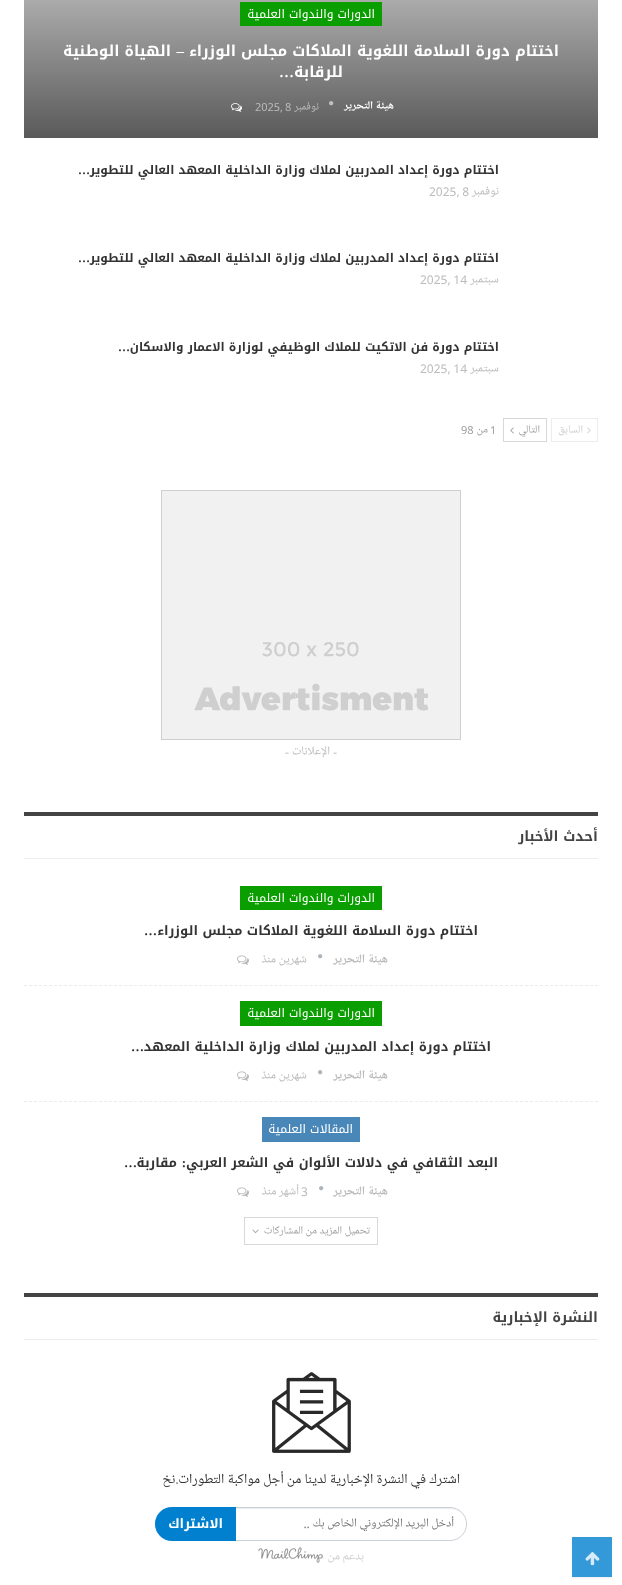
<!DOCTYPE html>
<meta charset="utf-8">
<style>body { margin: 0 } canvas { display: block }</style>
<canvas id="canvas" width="622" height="1585"></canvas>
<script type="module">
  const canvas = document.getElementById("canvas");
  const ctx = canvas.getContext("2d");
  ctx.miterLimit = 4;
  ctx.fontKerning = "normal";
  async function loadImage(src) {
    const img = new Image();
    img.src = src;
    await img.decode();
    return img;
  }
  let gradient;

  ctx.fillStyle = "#ffffff";
  ctx.fillRect(0, 0, 622, 1585);
  gradient = ctx.createLinearGradient(311, -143, 311, 139);
  gradient.addColorStop(0, "#ffffff");
  gradient.addColorStop(1, "#595959");
  ctx.fillStyle = gradient;
  ctx.fillRect(24, 0, 574, 138);
  ctx.fillStyle = "#0a9e01";
  ctx.fillRect(240, 2, 142, 24);
  ctx.direction = "rtl";
  ctx.font = "12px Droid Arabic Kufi";
  ctx.fillStyle = "#ffffff";
  ctx.fillText("الدورات والندوات العلمية", 375, 18);
  ctx.font = "bold 15px Droid Arabic Kufi";
  ctx.fillText("اختتام دورة السلامة اللغوية الملاكات مجلس الوزراء", 559, 56);
  ctx.font = "bold 15px Liberation Serif";
  ctx.fillText("–", 184, 56);
  ctx.font = "bold 15px Droid Arabic Kufi";
  ctx.fillText("الهياة الوطنية", 171, 56);
  ctx.fillText("للرقابة", 343, 77);
  ctx.font = "bold 15px Liberation Serif";
  ctx.fillText("…", 294, 77);
  ctx.font = "bold 11px Noto Naskh Arabic UI";
  ctx.fillText("هيئة التحرير", 394, 110);
  ctx.drawImage(await loadImage("img1.png"), 329, 101, 5, 5);
  ctx.font = "11px Noto Naskh Arabic UI";
  ctx.fillStyle = "#bbbbbb";
  ctx.fillText("نوفمبر", 319, 111);
  ctx.direction = "ltr";
  ctx.fillText("8", 285, 111);
  ctx.fillText(",", 280, 111);
  ctx.fillText("2025", 255, 111);
  ctx.drawImage(await loadImage("img2.png"), 231, 103, 11, 9);
  ctx.direction = "rtl";
  ctx.font = "bold 12px Droid Arabic Kufi";
  ctx.fillStyle = "#333333";
  ctx.fillText("اختتام دورة إعداد المدربين لملاك وزارة الداخلية المعهد العالي للتطوير", 499, 174);
  ctx.font = "bold 12px Liberation Serif";
  ctx.fillText("…", 90, 174);
  ctx.font = "12px Noto Naskh Arabic UI";
  ctx.fillStyle = "#bbbbbb";
  ctx.fillText("نوفمبر", 499, 196);
  ctx.direction = "ltr";
  ctx.fillText("2025, 8", 429, 196);
  ctx.direction = "rtl";
  ctx.font = "bold 12px Droid Arabic Kufi";
  ctx.fillStyle = "#333333";
  ctx.fillText("اختتام دورة إعداد المدربين لملاك وزارة الداخلية المعهد العالي للتطوير", 499, 262);
  ctx.font = "bold 12px Liberation Serif";
  ctx.fillText("…", 90, 262);
  ctx.font = "12px Noto Naskh Arabic UI";
  ctx.fillStyle = "#bbbbbb";
  ctx.fillText("سبتمبر", 499, 284);
  ctx.direction = "ltr";
  ctx.fillText("2025, 14", 420, 284);
  ctx.direction = "rtl";
  ctx.font = "bold 12px Droid Arabic Kufi";
  ctx.fillStyle = "#333333";
  ctx.fillText("اختتام دورة فن الاتكيت للملاك الوظيفي لوزارة الاعمار والاسكان", 499, 351);
  ctx.font = "bold 12px Liberation Serif";
  ctx.fillText("…", 130, 351);
  ctx.font = "12px Noto Naskh Arabic UI";
  ctx.fillStyle = "#bbbbbb";
  ctx.fillText("سبتمبر", 499, 373);
  ctx.direction = "ltr";
  ctx.fillText("2025, 14", 420, 373);
  ctx.strokeStyle = "#ececec";
  ctx.strokeRect(551.5, 418.5, 46, 23);
  ctx.drawImage(await loadImage("img3.png"), 587, 427, 4, 7);
  ctx.direction = "rtl";
  ctx.font = "11px Noto Naskh Arabic UI";
  ctx.fillStyle = "#cfcfcf";
  ctx.fillText("السابق", 583, 434);
  ctx.strokeStyle = "#d8d8d8";
  ctx.strokeRect(503.5, 418.5, 43, 23);
  ctx.fillStyle = "#9e9e9e";
  ctx.fillText("التالي", 540, 434);
  ctx.drawImage(await loadImage("img4.png"), 510, 427, 4, 7);
  ctx.direction = "ltr";
  ctx.fillText("1", 490, 434);
  ctx.direction = "rtl";
  ctx.fillText("من", 488, 434);
  ctx.direction = "ltr";
  ctx.fillText("98", 461, 434);
  ctx.drawImage(await loadImage("img5.png"), 161, 490, 300, 250);
  ctx.font = "12px Liberation Serif";
  ctx.fillStyle = "#bbbbbb";
  ctx.fillText("-", 333, 756);
  ctx.direction = "rtl";
  ctx.font = "12px Noto Naskh Arabic UI";
  ctx.fillText("الإعلانات", 330, 756);
  ctx.direction = "ltr";
  ctx.font = "12px Liberation Serif";
  ctx.fillText("-", 285, 756);
  ctx.fillStyle = "#444444";
  ctx.fillRect(24, 812, 574, 4);
  ctx.direction = "rtl";
  ctx.font = "bold 14px Droid Arabic Kufi";
  ctx.fillText("أحدث الأخبار", 598, 841);
  ctx.fillStyle = "#ededed";
  ctx.fillRect(24, 858, 574, 1);
  ctx.beginPath();
  ctx.moveTo(24, 985.5);
  ctx.lineTo(598, 985.5);
  ctx.strokeStyle = "#ebebeb";
  ctx.setLineDash([3, 2.01]);
  ctx.stroke();
  ctx.fillStyle = "#0a9e01";
  ctx.fillRect(240, 886, 142, 24);
  ctx.font = "12px Droid Arabic Kufi";
  ctx.fillStyle = "#ffffff";
  ctx.fillText("الدورات والندوات العلمية", 375, 902);
  ctx.font = "bold 13px Droid Arabic Kufi";
  ctx.fillStyle = "#333333";
  ctx.fillText("اختتام دورة السلامة اللغوية الملاكات مجلس الوزراء", 478, 935);
  ctx.font = "bold 13px Liberation Serif";
  ctx.fillText("…", 157, 935);
  ctx.font = "bold 12px Noto Naskh Arabic UI";
  ctx.fillStyle = "#bbbbbb";
  ctx.fillText("هيئة التحرير", 388, 964);
  ctx.drawImage(await loadImage("img6.png"), 318, 954, 5, 5);
  ctx.font = "12px Noto Naskh Arabic UI";
  ctx.fillText("شهرين منذ", 307, 964);
  ctx.drawImage(await loadImage("img7.png"), 237, 955, 12, 10);
  ctx.beginPath();
  ctx.moveTo(24, 1101.5);
  ctx.lineTo(598, 1101.5);
  ctx.stroke();
  ctx.fillStyle = "#0a9e01";
  ctx.fillRect(240, 1001, 142, 25);
  ctx.font = "12px Droid Arabic Kufi";
  ctx.fillStyle = "#ffffff";
  ctx.fillText("الدورات والندوات العلمية", 375, 1017);
  ctx.font = "bold 13px Droid Arabic Kufi";
  ctx.fillStyle = "#333333";
  ctx.fillText("اختتام دورة إعداد المدربين لملاك وزارة الداخلية المعهد", 491, 1051);
  ctx.font = "bold 13px Liberation Serif";
  ctx.fillText("…", 144, 1051);
  ctx.font = "bold 12px Noto Naskh Arabic UI";
  ctx.fillStyle = "#bbbbbb";
  ctx.fillText("هيئة التحرير", 388, 1080);
  ctx.drawImage(await loadImage("img6.png"), 318, 1070, 5, 5);
  ctx.font = "12px Noto Naskh Arabic UI";
  ctx.fillText("شهرين منذ", 307, 1080);
  ctx.drawImage(await loadImage("img7.png"), 237, 1071, 12, 10);
  ctx.fillStyle = "#4987b9";
  ctx.fillRect(262, 1117, 98, 25);
  ctx.font = "12px Droid Arabic Kufi";
  ctx.fillStyle = "#ffffff";
  ctx.fillText("المقالات العلمية", 353, 1133);
  ctx.font = "bold 13px Droid Arabic Kufi";
  ctx.fillStyle = "#333333";
  ctx.fillText("البعد الثقافي في دلالات الألوان في الشعر العربي", 498, 1167);
  ctx.font = "bold 13px Liberation Serif";
  ctx.fillText(":", 186, 1167);
  ctx.font = "bold 13px Droid Arabic Kufi";
  ctx.fillText("مقاربة", 177, 1167);
  ctx.font = "bold 13px Liberation Serif";
  ctx.fillText("…", 137, 1167);
  ctx.font = "bold 12px Noto Naskh Arabic UI";
  ctx.fillStyle = "#bbbbbb";
  ctx.fillText("هيئة التحرير", 388, 1196);
  ctx.drawImage(await loadImage("img6.png"), 319, 1186, 5, 5);
  ctx.direction = "ltr";
  ctx.font = "12px Noto Naskh Arabic UI";
  ctx.fillText("3", 301, 1196);
  ctx.direction = "rtl";
  ctx.fillText("أشهر منذ", 299, 1196);
  ctx.drawImage(await loadImage("img7.png"), 237, 1187, 12, 10);
  ctx.strokeStyle = "#d8d8d8";
  ctx.setLineDash([]);
  ctx.strokeRect(244.5, 1217.5, 133, 27);
  ctx.font = "11px Noto Naskh Arabic UI";
  ctx.fillStyle = "#9e9e9e";
  ctx.fillText("تحميل المزيد من المشاركات", 370, 1235);
  ctx.drawImage(await loadImage("img8.png"), 252, 1229, 7, 5);
  ctx.fillStyle = "#444444";
  ctx.fillRect(24, 1293, 574, 4);
  ctx.font = "bold 14px Droid Arabic Kufi";
  ctx.fillText("النشرة الإخبارية", 598, 1322);
  ctx.fillStyle = "#ededed";
  ctx.fillRect(24, 1339, 574, 1);
  ctx.drawImage(await loadImage("img9.png"), 272, 1372, 79, 81);
  ctx.font = "14px Noto Naskh Arabic UI";
  ctx.fillStyle = "#333333";
  ctx.fillText("اشترك في النشرة الإخبارية لدينا من أجل مواكبة التطورات.نخ", 460, 1485);
  ctx.fillStyle = "#ececec";
  ctx.beginPath();
  ctx.moveTo(172, 1509);
  ctx.lineTo(450, 1509);
  ctx.bezierCurveTo(459, 1509, 466, 1516, 466, 1524);
  ctx.bezierCurveTo(466, 1516, 459, 1508, 450, 1508);
  ctx.lineTo(172, 1508);
  ctx.bezierCurveTo(163, 1508, 156, 1516, 156, 1524);
  ctx.bezierCurveTo(156, 1516, 163, 1509, 172, 1509);
  ctx.closePath();
  ctx.fill();
  ctx.beginPath();
  ctx.roundRect(155.5, 1507.5, 311, 33, 16.5);
  ctx.strokeStyle = "#cbd1d8";
  ctx.stroke();
  ctx.font = "12px Noto Naskh Arabic UI";
  ctx.fillStyle = "#757575";
  ctx.fillText("أدخل البريد الإلكتروني الخاص بك ..", 454, 1528);
  ctx.fillStyle = "#0080ce";
  ctx.beginPath();
  ctx.roundRect(155, 1507, 81, 34, [17, 0, 0, 17]);
  ctx.fill();
  ctx.font = "bold 13px Droid Arabic Kufi";
  ctx.fillStyle = "#ffffff";
  ctx.fillText("الاشتراك", 223, 1528);
  ctx.font = "12px Noto Naskh Arabic UI";
  ctx.fillStyle = "#cfcfcf";
  ctx.fillText("بدعم من", 364, 1561);
  ctx.drawImage(await loadImage("img10.png"), 258, 1546, 66, 17);
  ctx.fillStyle = "rgba(51, 51, 51, 0.09)";
  ctx.filter = "blur(1px)";
  ctx.beginPath();
  ctx.rect(572, 1538, 40, 40);
  ctx.fill();
  ctx.filter = "none";
  ctx.fillStyle = "#3399d8";
  ctx.fillRect(572, 1537, 40, 40);
  ctx.drawImage(await loadImage("img11.png"), 585, 1552, 15, 14);
</script>
